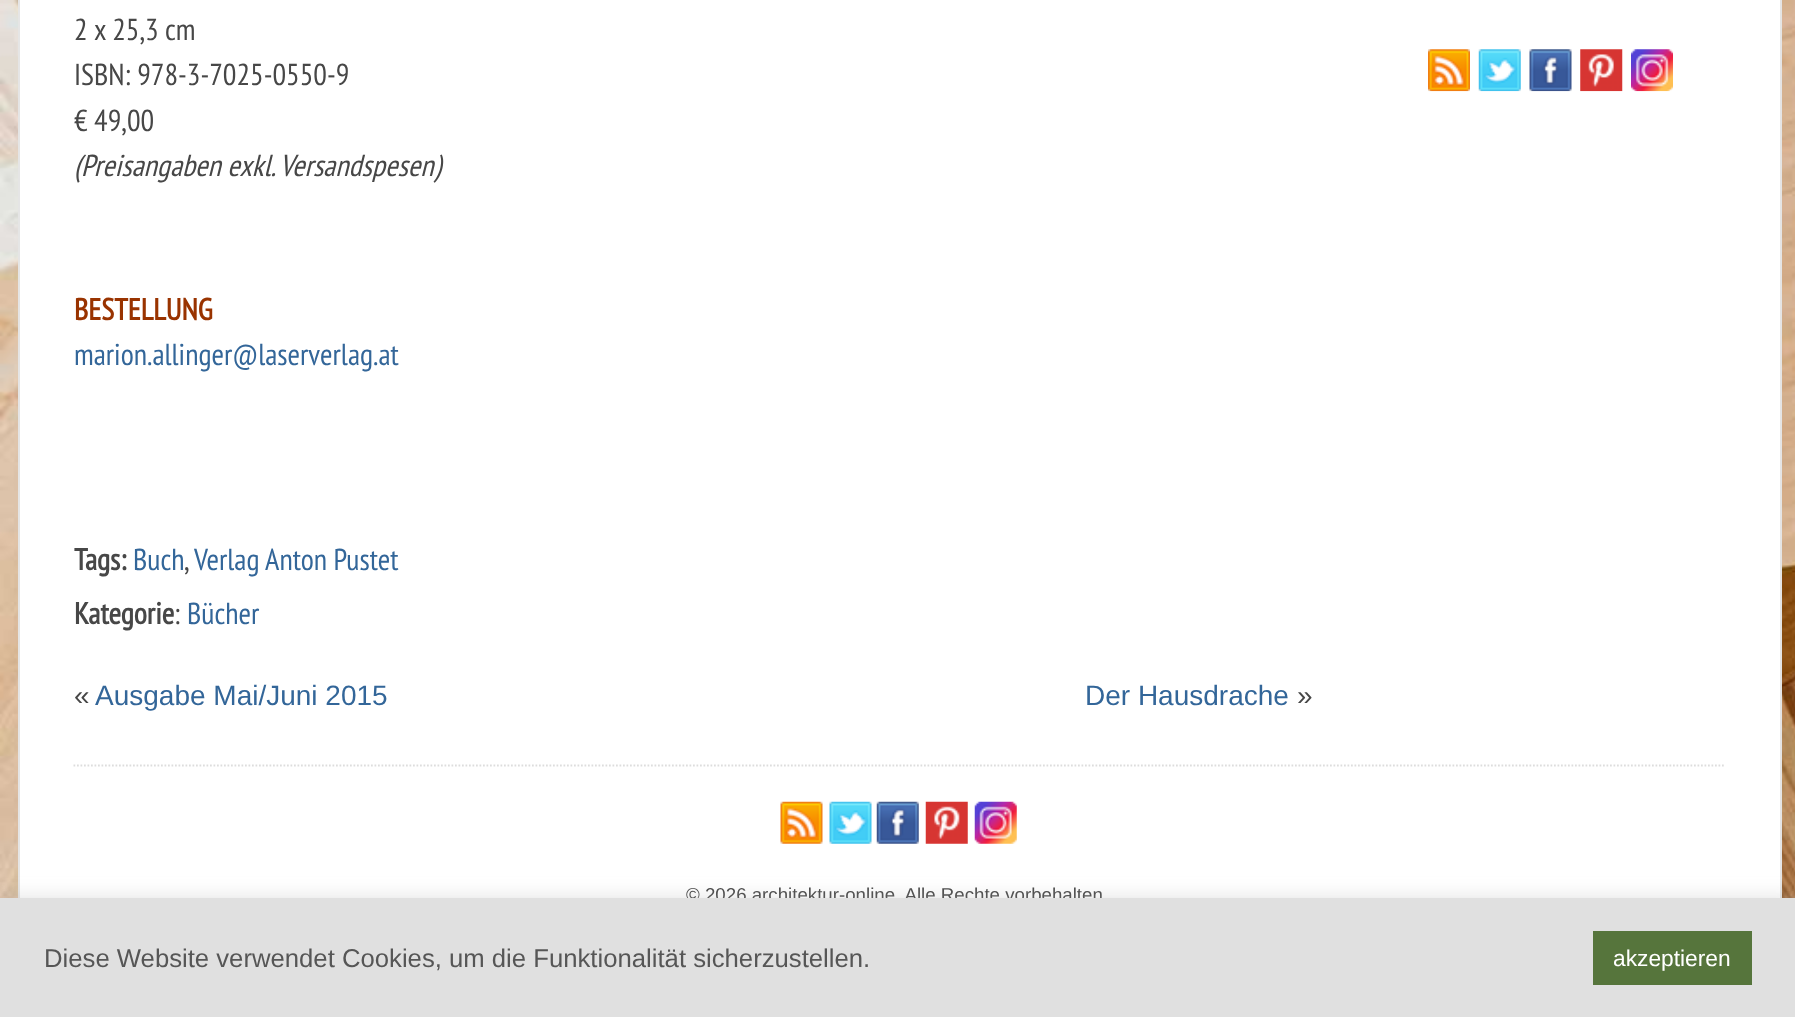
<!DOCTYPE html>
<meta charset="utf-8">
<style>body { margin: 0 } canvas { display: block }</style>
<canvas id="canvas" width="1795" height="1017"></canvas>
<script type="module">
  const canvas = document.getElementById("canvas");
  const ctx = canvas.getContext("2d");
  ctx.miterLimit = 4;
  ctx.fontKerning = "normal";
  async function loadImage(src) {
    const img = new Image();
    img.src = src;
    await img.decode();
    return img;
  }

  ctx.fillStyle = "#ffffff";
  ctx.fillRect(0, 0, 1795, 1017);
  ctx.drawImage(await loadImage("img1.png"), 0, 0, 1795, 898);
  ctx.fillRect(20, 0, 1760, 898);
  ctx.strokeStyle = "#e5e5e5";
  ctx.lineWidth = 2;
  ctx.strokeRect(19, -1, 1762, 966);
  ctx.font = "30.25px PT Sans Narrow";
  ctx.fillStyle = "#474747";
  ctx.fillText("2 x 25,3 cm", 74, 40);
  ctx.fillText("ISBN: 978-3-7025-0550-9", 74, 85);
  ctx.fillText("€ 49,00", 74, 131);
  ctx.font = "italic 30.25px PT Sans Narrow";
  ctx.fillText("(Preisangaben exkl. Versandspesen)", 74, 176);
  ctx.font = "bold 30.25px PT Sans Narrow";
  ctx.fillStyle = "#993300";
  ctx.fillText("BESTELLUNG", 74, 320);
  ctx.font = "30.25px PT Sans Narrow";
  ctx.fillStyle = "#336699";
  ctx.fillText("marion.allinger@laserverlag.at", 74, 365);
  ctx.font = "bold 30.25px PT Sans Narrow";
  ctx.fillStyle = "#474747";
  ctx.fillText("Tags:", 74, 570);
  ctx.font = "30.25px PT Sans Narrow";
  ctx.fillStyle = "#336699";
  ctx.fillText("Buch", 133, 570);
  ctx.fillStyle = "#474747";
  ctx.fillText(",", 184, 570);
  ctx.fillStyle = "#336699";
  ctx.fillText("Verlag Anton Pustet", 194, 570);
  ctx.font = "bold 30.25px PT Sans Narrow";
  ctx.fillStyle = "#474747";
  ctx.fillText("Kategorie", 74, 624);
  ctx.font = "30.25px PT Sans Narrow";
  ctx.fillText(":", 174, 624);
  ctx.fillStyle = "#336699";
  ctx.fillText("Bücher", 187, 624);
  ctx.font = "28px Liberation Sans";
  ctx.fillStyle = "#474747";
  ctx.fillText("«", 74, 705);
  ctx.fillStyle = "#336699";
  ctx.fillText("Ausgabe Mai/Juni 2015", 95, 705);
  ctx.fillText("Der Hausdrache", 1085, 705);
  ctx.fillStyle = "#474747";
  ctx.fillText("»", 1297, 705);
  ctx.drawImage(await loadImage("img2.png"), 1428, 49, 42, 43);
  ctx.drawImage(await loadImage("img3.png"), 1478, 49, 43, 43);
  ctx.drawImage(await loadImage("img4.png"), 1529, 49, 43, 43);
  ctx.drawImage(await loadImage("img5.png"), 1580, 49, 43, 43);
  ctx.drawImage(await loadImage("img6.png"), 1631, 49, 42, 43);
  ctx.beginPath();
  ctx.moveTo(73.5, 765.5);
  ctx.lineTo(1725.5, 765.5);
  ctx.strokeStyle = "#dddddd";
  ctx.lineWidth = 1.8;
  ctx.setLineDash([1.75, 1.75]);
  ctx.stroke();
  ctx.drawImage(await loadImage("img7.png"), 780, 801, 43, 43);
  ctx.drawImage(await loadImage("img8.png"), 829, 801, 43, 43);
  ctx.drawImage(await loadImage("img9.png"), 876, 801, 43, 43);
  ctx.drawImage(await loadImage("img10.png"), 925, 801, 43, 43);
  ctx.drawImage(await loadImage("img11.png"), 974, 801, 43, 43);
  ctx.font = "18.7px Liberation Sans";
  ctx.fillText("© 2026 architektur-online. Alle Rechte vorbehalten", 686, 901);
  ctx.fillStyle = "rgba(172, 171, 171, 0.3)";
  ctx.filter = "blur(9px)";
  ctx.beginPath();
  ctx.rect(0, 896, 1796, 121);
  ctx.fill();
  ctx.filter = "none";
  ctx.fillStyle = "#e0e0e0";
  ctx.fillRect(0, 898, 1795, 119);
  ctx.font = "25.7px Liberation Sans";
  ctx.fillStyle = "#565656";
  ctx.fillText("Diese Website verwendet Cookies, um die Funktionalität sicherzustellen.", 44, 967);
  ctx.fillStyle = "#56753c";
  ctx.fillRect(1593, 931, 159, 54);
  ctx.font = "22.75px Liberation Sans";
  ctx.fillStyle = "#ffffff";
  ctx.fillText("akzeptieren", 1613, 966);
</script>
